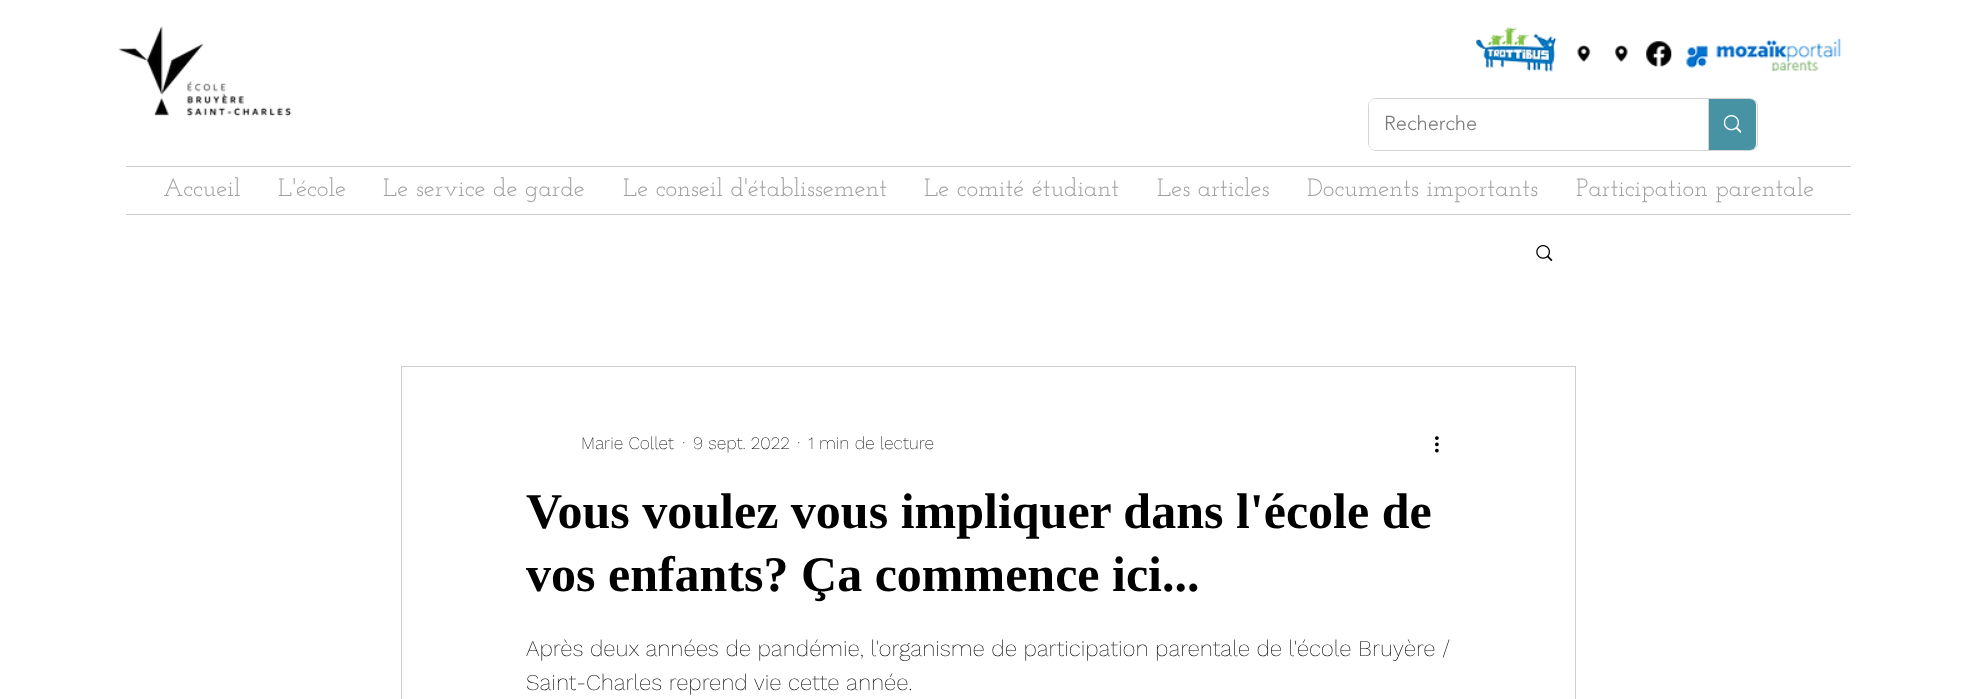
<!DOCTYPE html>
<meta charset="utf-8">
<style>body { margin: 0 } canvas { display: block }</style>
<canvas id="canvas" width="1977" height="699"></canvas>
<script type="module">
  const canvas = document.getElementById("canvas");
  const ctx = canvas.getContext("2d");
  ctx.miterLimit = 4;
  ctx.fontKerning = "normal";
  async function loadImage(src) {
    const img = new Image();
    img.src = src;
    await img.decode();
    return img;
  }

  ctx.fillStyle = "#ffffff";
  ctx.fillRect(0, 0, 1977, 699);
  ctx.drawImage(await loadImage("img1.png"), 118, 26, 174, 91);
  ctx.drawImage(await loadImage("img2.png"), 1476, 27, 81, 45);
  ctx.drawImage(await loadImage("img3.png"), 1577, 45, 14, 17);
  ctx.drawImage(await loadImage("img4.png"), 1614, 45, 14, 17);
  ctx.drawImage(await loadImage("img5.png"), 1646, 41, 26, 26);
  ctx.drawImage(await loadImage("img6.png"), 1684, 38, 158, 34);
  ctx.beginPath();
  ctx.roundRect(1368.5, 98.5, 389, 52, 7.5);
  ctx.strokeStyle = "#d4d4d4";
  ctx.stroke();
  ctx.beginPath();
  ctx.roundRect(1369, 99, 387, 51, 6);
  ctx.fill();
  ctx.font = "300 20px 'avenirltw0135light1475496'";
  ctx.fillStyle = "#787878";
  ctx.fillText("Recherche", 1384, 130);
  ctx.fillStyle = "#4793a3";
  ctx.beginPath();
  ctx.roundRect(1708, 99, 48, 51, [0, 6, 6, 0]);
  ctx.fill();
  ctx.fillStyle = "#d4d4d4";
  ctx.fillRect(1708, 99, 1, 51);
  ctx.drawImage(await loadImage("img7.png"), 1724, 115, 17, 18);
  ctx.fillStyle = "#cacaca";
  ctx.fillRect(126, 166, 1725, 1);
  ctx.fillRect(126, 214, 1725, 1);
  ctx.font = "25px Josefin Slab";
  ctx.fillStyle = "#9e9e9e";
  ctx.fillText("Accueil", 163, 196);
  ctx.fillText("L'école", 278, 196);
  ctx.fillText("Le service de garde", 383, 196);
  ctx.fillText("Le conseil d'établissement", 623, 196);
  ctx.fillText("Le comité étudiant", 924, 196);
  ctx.fillText("Les articles", 1157, 196);
  ctx.fillText("Documents importants", 1307, 196);
  ctx.fillText("Participation parentale", 1576, 196);
  ctx.drawImage(await loadImage("img8.png"), 1536, 245, 17, 17);
  ctx.strokeStyle = "#cfcfcf";
  ctx.strokeRect(401.5, 366.5, 1174, 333);
  ctx.font = "200 17.5px Work Sans";
  ctx.fillStyle = "#000000";
  ctx.fillText("Marie Collet", 581, 449);
  ctx.fillText("·", 682, 449);
  ctx.fillText("9 sept. 2022", 693, 449);
  ctx.fillText("·", 797, 449);
  ctx.fillText("1 min de lecture", 808, 449);
  ctx.drawImage(await loadImage("img9.png"), 1435, 436, 4, 17);
  ctx.font = "bold 50px Liberation Serif";
  ctx.fillText("Vous voulez vous impliquer dans l'école de", 526, 528);
  ctx.fillText("vos enfants? Ça commence ici...", 526, 591);
  ctx.font = "200 22.5px Work Sans";
  ctx.fillText("Après deux années de pandémie, l'organisme de participation parentale de l'école Bruyère /", 526, 656);
  ctx.fillText("Saint-Charles reprend vie cette année.", 526, 690);
</script>
